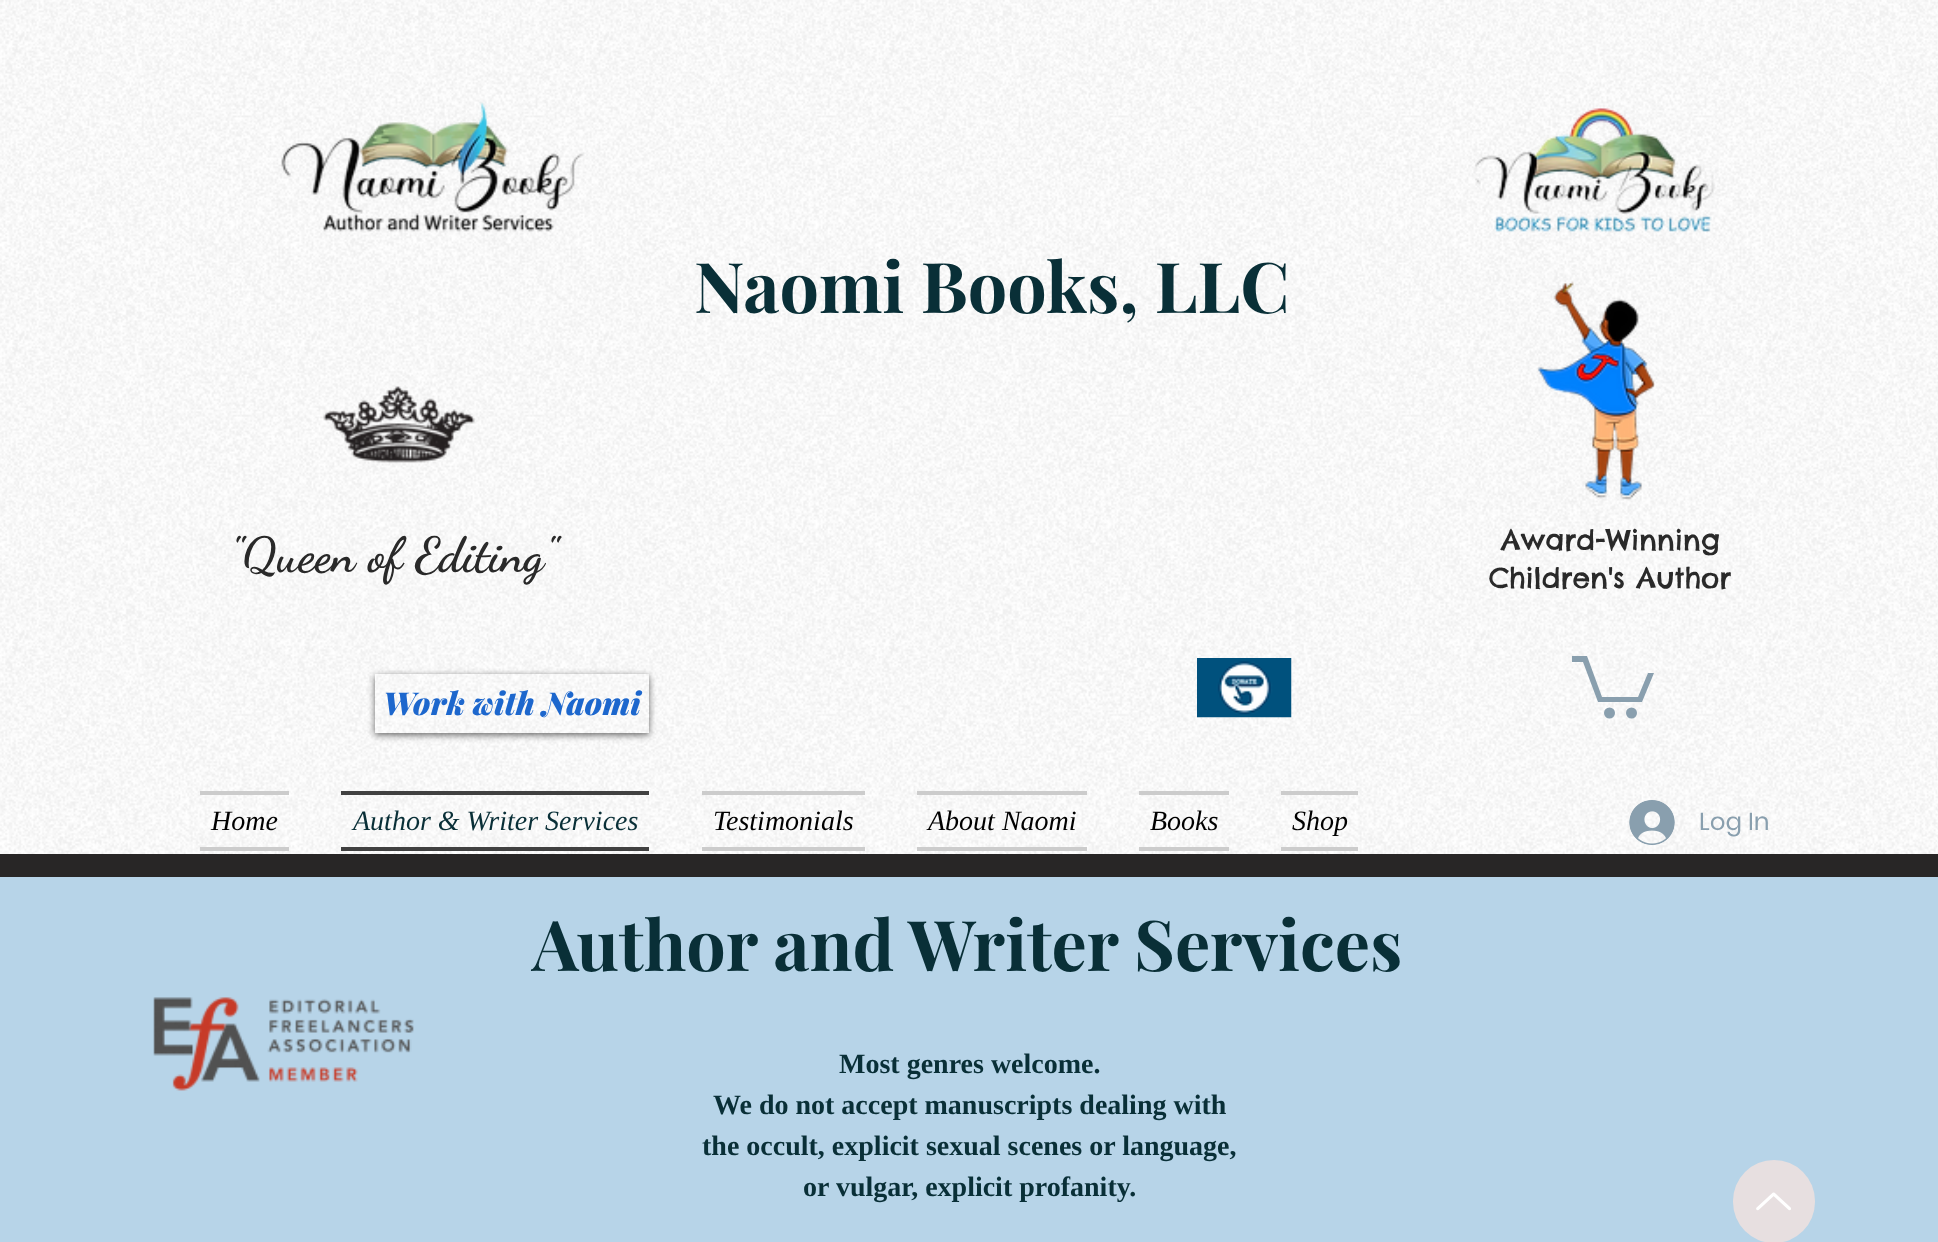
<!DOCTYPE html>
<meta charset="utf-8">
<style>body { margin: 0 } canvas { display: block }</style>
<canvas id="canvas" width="1938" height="1242"></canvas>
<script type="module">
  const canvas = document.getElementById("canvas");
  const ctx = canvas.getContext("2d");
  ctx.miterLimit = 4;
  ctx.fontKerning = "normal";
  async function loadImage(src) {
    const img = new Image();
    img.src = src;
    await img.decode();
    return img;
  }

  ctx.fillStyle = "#ffffff";
  ctx.fillRect(0, 0, 1938, 1242);
  ctx.drawImage(await loadImage("img1.png"), 0, 0, 1938, 854);
  ctx.drawImage(await loadImage("img2.png"), 281, 102, 304, 130);
  ctx.drawImage(await loadImage("img3.png"), 1473, 108, 246, 124);
  ctx.drawImage(await loadImage("img4.png"), 323, 386, 152, 77);
  ctx.font = "bold 70px Playfair Display";
  ctx.fillStyle = "#092f37";
  ctx.fillText("Naomi Books, LLC", 694, 313);
  ctx.drawImage(await loadImage("img5.png"), 1537, 281, 118, 219);
  ctx.font = "bold 49px Dancing Script";
  ctx.fillStyle = "#292929";
  ctx.fillText("\"Queen of Editing\"", 229, 571);
  ctx.font = "28px Chelsea Market";
  ctx.fillText("Award-Winning", 1501, 550);
  ctx.fillText("Children's Author", 1489, 588);
  ctx.save();
  ctx.beginPath();
  ctx.moveTo(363, 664);
  ctx.lineTo(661, 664);
  ctx.lineTo(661, 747);
  ctx.lineTo(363, 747);
  ctx.closePath();
  ctx.moveTo(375, 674);
  ctx.lineTo(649, 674);
  ctx.lineTo(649, 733);
  ctx.lineTo(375, 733);
  ctx.closePath();
  ctx.clip("evenodd");
  ctx.fillStyle = "rgba(0, 0, 0, 0.6)";
  ctx.filter = "blur(3.5px)";
  ctx.beginPath();
  ctx.rect(375, 676, 274, 59);
  ctx.fill();
  ctx.filter = "none";
  ctx.restore();
  ctx.font = "italic 900 31.5px Playfair Display";
  ctx.fillStyle = "#1d67cd";
  ctx.fillText("Work with Naomi", 383, 715);
  ctx.fillStyle = "#cccccc";
  ctx.fillRect(200, 791, 89, 4);
  ctx.fillRect(200, 847, 89, 4);
  ctx.font = "italic 28px Liberation Serif";
  ctx.fillStyle = "#000000";
  ctx.fillText("Home", 211, 830);
  ctx.fillStyle = "#414141";
  ctx.fillRect(341, 791, 308, 4);
  ctx.fillRect(341, 847, 308, 4);
  ctx.fillStyle = "#092f37";
  ctx.fillText("Author & Writer Services", 353, 830);
  ctx.fillStyle = "#cccccc";
  ctx.fillRect(702, 791, 163, 4);
  ctx.fillRect(702, 847, 163, 4);
  ctx.fillStyle = "#000000";
  ctx.fillText("Testimonials", 713, 830);
  ctx.fillStyle = "#cccccc";
  ctx.fillRect(917, 791, 170, 4);
  ctx.fillRect(917, 847, 170, 4);
  ctx.fillStyle = "#000000";
  ctx.fillText("About Naomi", 928, 830);
  ctx.fillStyle = "#cccccc";
  ctx.fillRect(1139, 791, 90, 4);
  ctx.fillRect(1139, 847, 90, 4);
  ctx.fillStyle = "#000000";
  ctx.fillText("Books", 1150, 830);
  ctx.fillStyle = "#cccccc";
  ctx.fillRect(1281, 791, 77, 4);
  ctx.fillRect(1281, 847, 77, 4);
  ctx.fillStyle = "#000000";
  ctx.fillText("Shop", 1292, 830);
  ctx.drawImage(await loadImage("img6.png"), 1629, 800, 46, 45);
  ctx.font = "24.5px Poppins";
  ctx.fillStyle = "#899fae";
  ctx.fillText("Log In", 1699, 830);
  ctx.drawImage(await loadImage("img7.png"), 1197, 658, 95, 60);
  ctx.beginPath();
  ctx.moveTo(1654, 673);
  ctx.lineTo(1642, 702);
  ctx.lineTo(1598, 702);
  ctx.lineTo(1583, 662);
  ctx.lineTo(1572, 662);
  ctx.lineTo(1572, 656);
  ctx.lineTo(1587, 656);
  ctx.lineTo(1602, 697);
  ctx.lineTo(1638, 697);
  ctx.lineTo(1648, 673);
  ctx.fill();
  ctx.beginPath();
  ctx.arc(1631.5, 713, 5.5, 0, Math.PI * 2);
  ctx.fill();
  ctx.beginPath();
  ctx.arc(1609.5, 713, 5.5, 0, Math.PI * 2);
  ctx.fill();
  ctx.fillStyle = "#b7d4e8";
  ctx.fillRect(0, 877, 1938, 365);
  ctx.fillStyle = "#282626";
  ctx.fillRect(0, 854, 1938, 23);
  ctx.font = "bold 70px Playfair Display";
  ctx.fillStyle = "#092f37";
  ctx.fillText("Author and Writer Services", 532, 971);
  ctx.drawImage(await loadImage("img8.png"), 153, 997, 261, 94);
  ctx.font = "bold 28px Liberation Serif";
  ctx.fillText("Most genres welcome.", 839, 1073);
  ctx.fillText("We do not accept manuscripts dealing with", 713, 1114);
  ctx.fillText("the occult, explicit sexual scenes or language,", 702, 1155);
  ctx.fillText("or vulgar, explicit profanity.", 803, 1196);
  ctx.fillStyle = "#e7dfe0";
  ctx.beginPath();
  ctx.roundRect(1733, 1160, 82, 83, 41);
  ctx.fill();
  ctx.drawImage(await loadImage("img9.png"), 1756, 1192, 35, 19);
</script>
